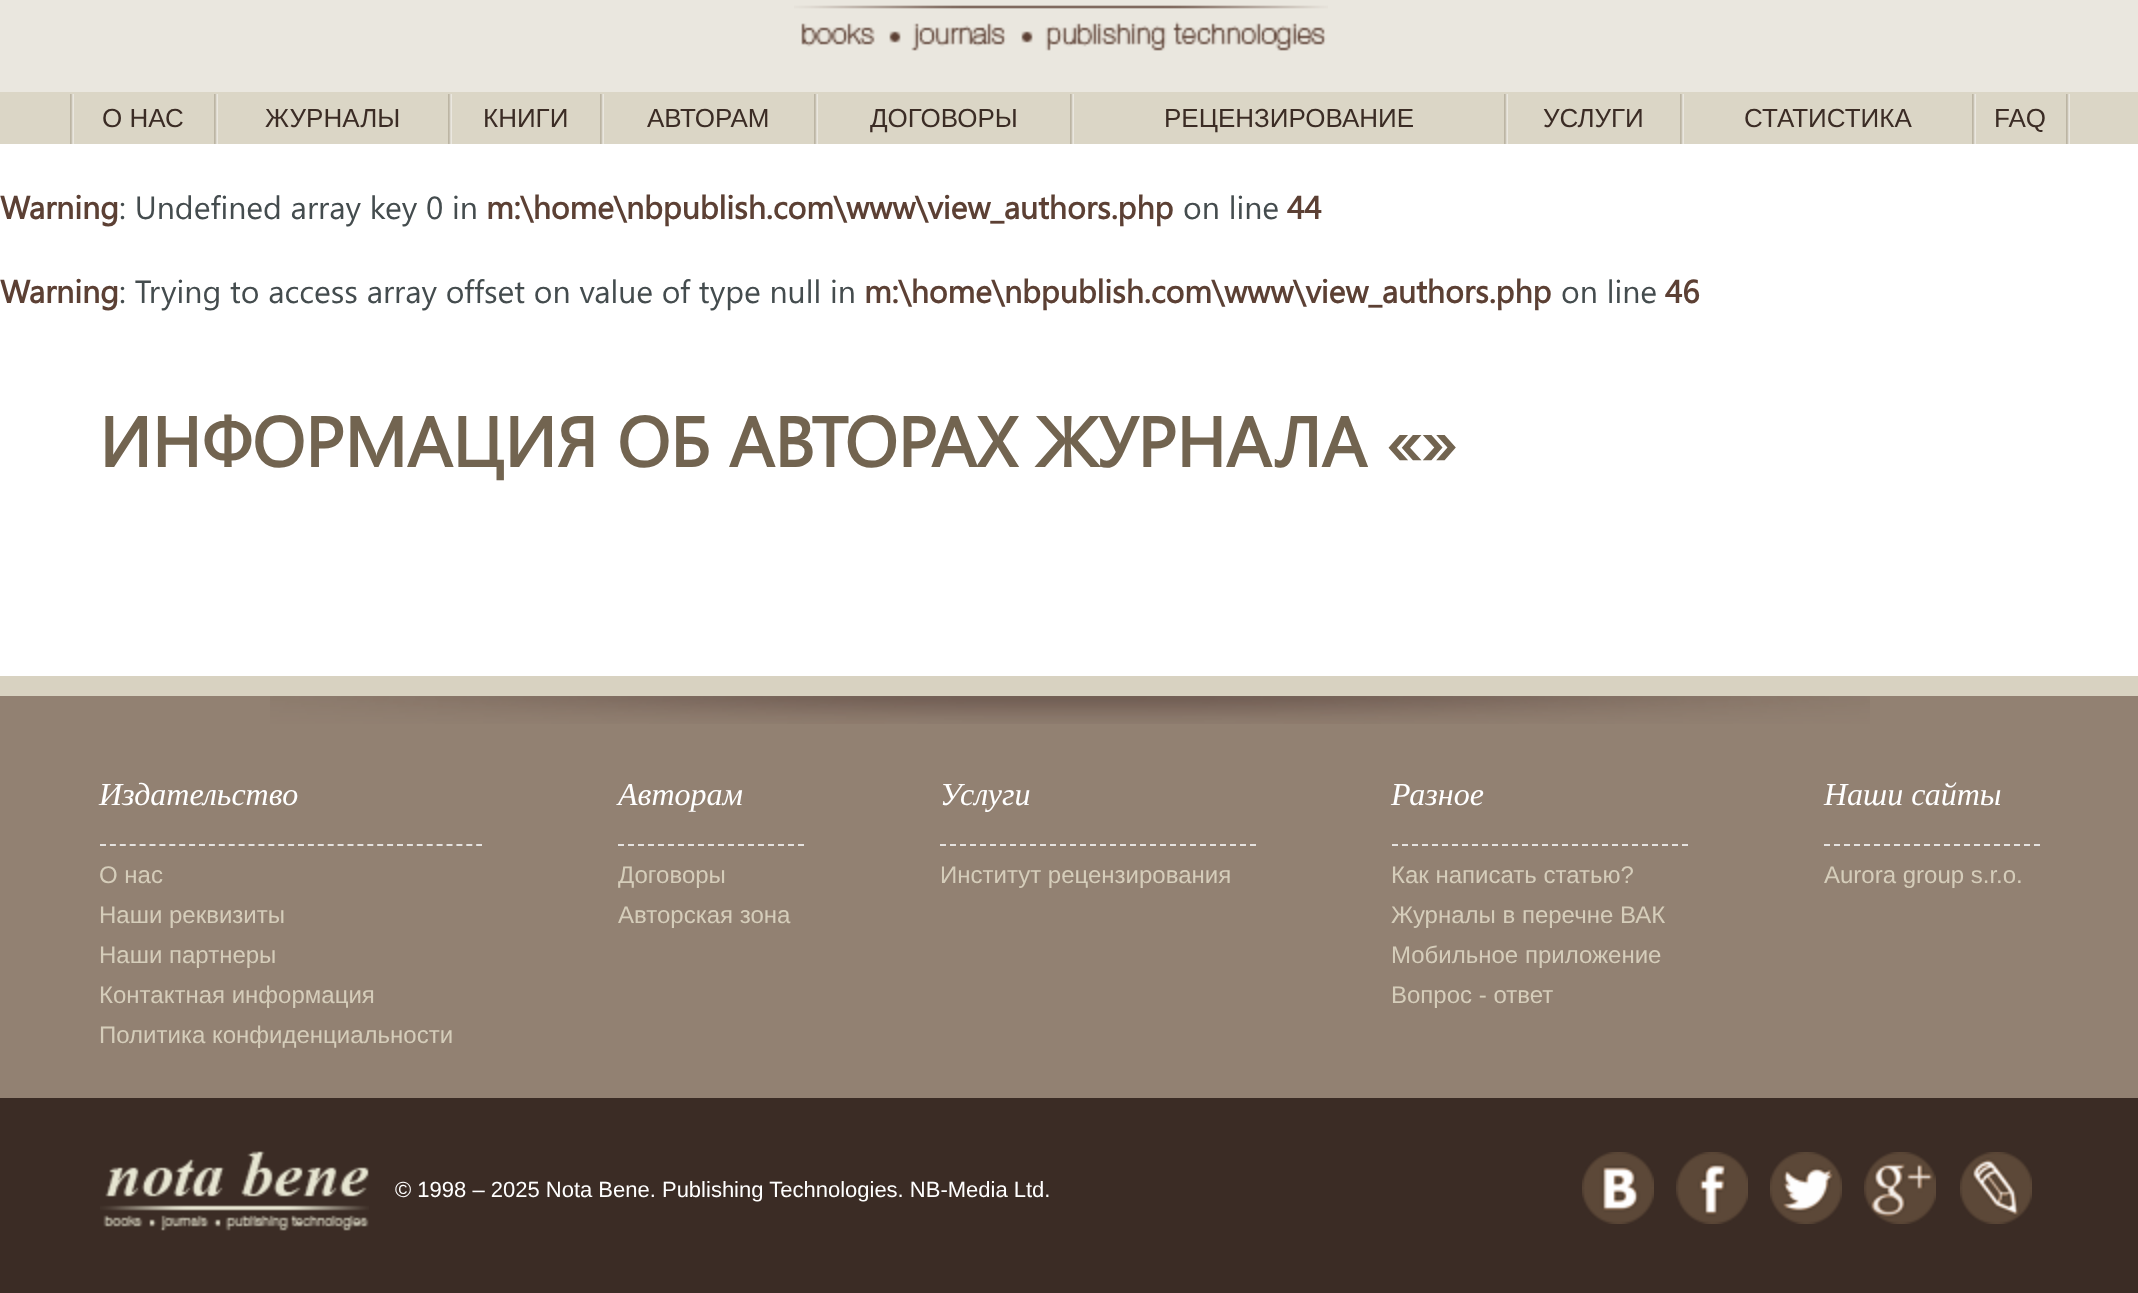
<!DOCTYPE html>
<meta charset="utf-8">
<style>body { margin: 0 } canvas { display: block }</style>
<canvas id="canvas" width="2138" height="1293"></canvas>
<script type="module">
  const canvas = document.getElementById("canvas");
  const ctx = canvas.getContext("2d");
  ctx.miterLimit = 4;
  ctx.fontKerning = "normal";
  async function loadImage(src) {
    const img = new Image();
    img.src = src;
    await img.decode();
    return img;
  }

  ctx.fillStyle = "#ffffff";
  ctx.fillRect(0, 0, 2138, 1293);
  ctx.fillStyle = "#dbd6c6";
  ctx.fillRect(0, 92, 2138, 52);
  ctx.fillStyle = "#eae7df";
  ctx.fillRect(0, 0, 2138, 92);
  ctx.drawImage(await loadImage("img1.png"), 794, 5, 534, 46);
  ctx.drawImage(await loadImage("img2.png"), 70, 94, 4, 50);
  ctx.font = "26px Liberation Sans";
  ctx.fillStyle = "#3b2c25";
  ctx.fillText("О НАС", 102, 127);
  ctx.drawImage(await loadImage("img2.png"), 214, 94, 4, 50);
  ctx.fillText("ЖУРНАЛЫ", 265, 127);
  ctx.drawImage(await loadImage("img2.png"), 448, 94, 4, 50);
  ctx.fillText("КНИГИ", 483, 127);
  ctx.drawImage(await loadImage("img2.png"), 600, 94, 4, 50);
  ctx.fillText("АВТОРАМ", 647, 127);
  ctx.drawImage(await loadImage("img2.png"), 814, 94, 4, 50);
  ctx.fillText("ДОГОВОРЫ", 870, 127);
  ctx.drawImage(await loadImage("img2.png"), 1070, 94, 4, 50);
  ctx.fillText("РЕЦЕНЗИРОВАНИЕ", 1164, 127);
  ctx.drawImage(await loadImage("img2.png"), 1504, 94, 4, 50);
  ctx.fillText("УСЛУГИ", 1543, 127);
  ctx.drawImage(await loadImage("img2.png"), 1680, 94, 4, 50);
  ctx.fillText("СТАТИСТИКА", 1744, 127);
  ctx.drawImage(await loadImage("img2.png"), 1972, 94, 4, 50);
  ctx.fillText("FAQ", 1994, 127);
  ctx.drawImage(await loadImage("img2.png"), 2066, 94, 4, 50);
  ctx.font = "bold 32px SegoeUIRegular";
  ctx.fillStyle = "#5c4034";
  ctx.fillText("Warning", 0, 219);
  ctx.font = "32px SegoeUIRegular";
  ctx.fillStyle = "#444c4e";
  ctx.fillText(": Undefined array key 0 in", 119, 219);
  ctx.font = "bold 32px SegoeUIRegular";
  ctx.fillStyle = "#5c4034";
  ctx.fillText("m:\\home\\nbpublish.com\\www\\view_authors.php", 486, 219);
  ctx.font = "32px SegoeUIRegular";
  ctx.fillStyle = "#444c4e";
  ctx.fillText("on line", 1183, 219);
  ctx.font = "bold 32px SegoeUIRegular";
  ctx.fillStyle = "#5c4034";
  ctx.fillText("44", 1287, 219);
  ctx.fillText("Warning", 0, 303);
  ctx.font = "32px SegoeUIRegular";
  ctx.fillStyle = "#444c4e";
  ctx.fillText(": Trying to access array offset on value of type null in", 119, 303);
  ctx.font = "bold 32px SegoeUIRegular";
  ctx.fillStyle = "#5c4034";
  ctx.fillText("m:\\home\\nbpublish.com\\www\\view_authors.php", 864, 303);
  ctx.font = "32px SegoeUIRegular";
  ctx.fillStyle = "#444c4e";
  ctx.fillText("on line", 1561, 303);
  ctx.font = "bold 32px SegoeUIRegular";
  ctx.fillStyle = "#5c4034";
  ctx.fillText("46", 1665, 303);
  ctx.font = "bold 70px SegoeUIRegular";
  ctx.fillStyle = "#726450";
  ctx.fillText("ИНФОРМАЦИЯ ОБ АВТОРАХ ЖУРНАЛА «»", 99, 467);
  ctx.fillStyle = "#d8d2c1";
  ctx.fillRect(0, 676, 2138, 20);
  ctx.fillStyle = "#928172";
  ctx.fillRect(0, 696, 2138, 402);
  ctx.drawImage(await loadImage("img3.png"), 270, 696, 1600, 28);
  ctx.beginPath();
  ctx.moveTo(100, 845);
  ctx.lineTo(482, 845);
  ctx.strokeStyle = "#e5e2df";
  ctx.lineWidth = 2;
  ctx.setLineDash([6, 3.9]);
  ctx.stroke();
  ctx.font = "italic 32px Liberation Serif";
  ctx.fillStyle = "#ffffff";
  ctx.fillText("Издательство", 99, 805);
  ctx.font = "24px Liberation Sans";
  ctx.fillStyle = "#d5cdba";
  ctx.fillText("О нас", 99, 883);
  ctx.fillText("Наши реквизиты", 99, 923);
  ctx.fillText("Наши партнеры", 99, 963);
  ctx.fillText("Контактная информация", 99, 1003);
  ctx.fillText("Политика конфиденциальности", 99, 1043);
  ctx.beginPath();
  ctx.moveTo(618, 845);
  ctx.lineTo(804, 845);
  ctx.setLineDash([6, 4]);
  ctx.stroke();
  ctx.font = "italic 32px Liberation Serif";
  ctx.fillStyle = "#ffffff";
  ctx.fillText("Авторам", 618, 805);
  ctx.font = "24px Liberation Sans";
  ctx.fillStyle = "#d5cdba";
  ctx.fillText("Договоры", 618, 883);
  ctx.fillText("Авторская зона", 618, 923);
  ctx.beginPath();
  ctx.moveTo(940, 845);
  ctx.lineTo(1256, 845);
  ctx.stroke();
  ctx.font = "italic 32px Liberation Serif";
  ctx.fillStyle = "#ffffff";
  ctx.fillText("Услуги", 940, 805);
  ctx.font = "24px Liberation Sans";
  ctx.fillStyle = "#d5cdba";
  ctx.fillText("Институт рецензирования", 940, 883);
  ctx.beginPath();
  ctx.moveTo(1392, 845);
  ctx.lineTo(1688, 845);
  ctx.stroke();
  ctx.font = "italic 32px Liberation Serif";
  ctx.fillStyle = "#ffffff";
  ctx.fillText("Разное", 1391, 805);
  ctx.font = "24px Liberation Sans";
  ctx.fillStyle = "#d5cdba";
  ctx.fillText("Как написать статью?", 1391, 883);
  ctx.fillText("Журналы в перечне ВАК", 1391, 923);
  ctx.fillText("Мобильное приложение", 1391, 963);
  ctx.fillText("Вопрос - ответ", 1391, 1003);
  ctx.beginPath();
  ctx.moveTo(1824, 845);
  ctx.lineTo(2040, 845);
  ctx.stroke();
  ctx.font = "italic 32px Liberation Serif";
  ctx.fillStyle = "#ffffff";
  ctx.fillText("Наши сайты", 1824, 805);
  ctx.font = "24px Liberation Sans";
  ctx.fillStyle = "#d5cdba";
  ctx.fillText("Aurora group s.r.o.", 1824, 883);
  ctx.fillStyle = "#3b2c25";
  ctx.fillRect(0, 1098, 2138, 195);
  ctx.drawImage(await loadImage("img4.png"), 100, 1151, 269, 80);
  ctx.font = "22px Liberation Sans";
  ctx.fillStyle = "#ffffff";
  ctx.fillText("© 1998 – 2025 Nota Bene. Publishing Technologies. NB-Media Ltd.", 395, 1197);
  ctx.drawImage(await loadImage("img5.png"), 1582, 1152, 72, 72);
  ctx.drawImage(await loadImage("img6.png"), 1676, 1152, 72, 72);
  ctx.drawImage(await loadImage("img7.png"), 1770, 1152, 72, 72);
  ctx.drawImage(await loadImage("img8.png"), 1864, 1152, 72, 72);
  ctx.drawImage(await loadImage("img9.png"), 1960, 1152, 72, 72);
</script>
